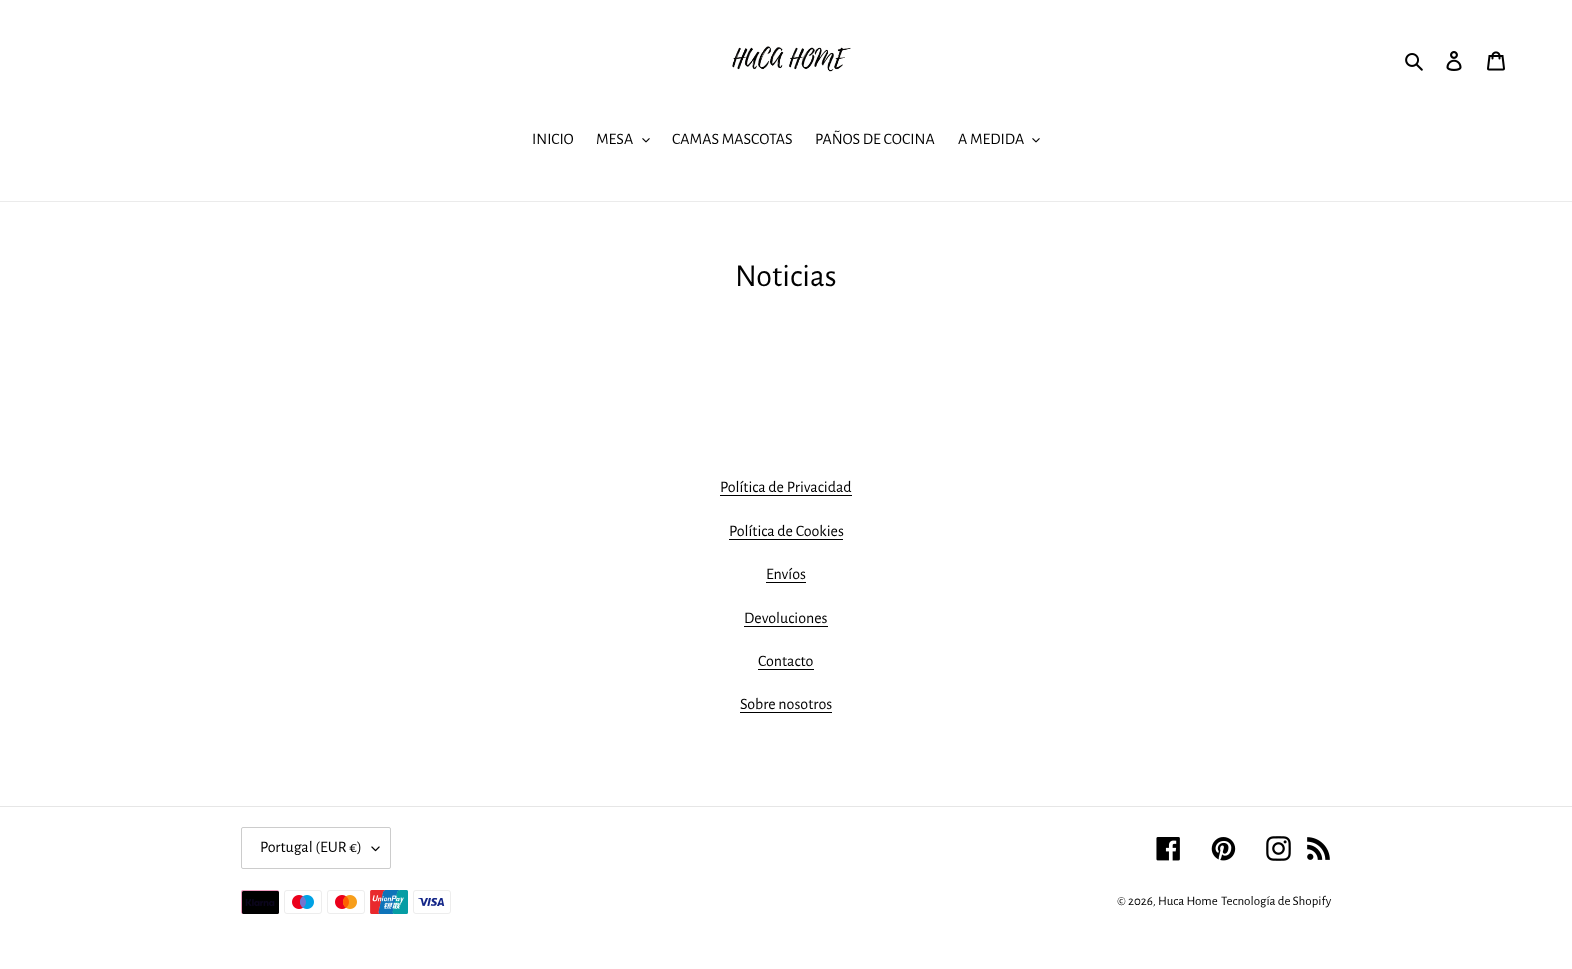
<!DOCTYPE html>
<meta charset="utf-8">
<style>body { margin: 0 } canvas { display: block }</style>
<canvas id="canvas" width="1572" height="969"></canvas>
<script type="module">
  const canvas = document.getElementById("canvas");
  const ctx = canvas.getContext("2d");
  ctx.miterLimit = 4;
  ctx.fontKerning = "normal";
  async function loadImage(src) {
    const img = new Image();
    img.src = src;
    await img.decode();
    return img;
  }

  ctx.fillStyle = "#ffffff";
  ctx.fillRect(0, 0, 1572, 969);
  ctx.drawImage(await loadImage("img1.png"), 732, 46, 119, 26);
  ctx.drawImage(await loadImage("img2.png"), 1405, 53, 18, 18);
  ctx.drawImage(await loadImage("img3.png"), 1446, 51, 16, 20);
  ctx.drawImage(await loadImage("img4.png"), 1487, 51, 18, 20);
  ctx.fillStyle = "#ebebeb";
  ctx.fillRect(0, 201, 1572, 1);
  ctx.font = "16px Alegreya Sans";
  ctx.fillStyle = "#000000";
  ctx.fillText("INICIO", 532, 144);
  ctx.fillText("MESA", 596, 144);
  ctx.drawImage(await loadImage("img5.png"), 642, 138, 8, 5);
  ctx.fillText("CAMAS MASCOTAS", 672, 144);
  ctx.fillText("PAÑOS DE COCINA", 815, 144);
  ctx.fillText("A MEDIDA", 958, 144);
  ctx.drawImage(await loadImage("img5.png"), 1032, 138, 8, 5);
  ctx.font = "32px Alegreya Sans";
  ctx.fillText("Noticias", 735, 286);
  ctx.font = "16px Alegreya Sans";
  ctx.fillText("Política de Privacidad", 720, 492);
  ctx.fillRect(720, 495, 132, 1);
  ctx.fillText("Política de Cookies", 729, 536);
  ctx.fillRect(729, 539, 114, 1);
  ctx.fillText("Envíos", 766, 579);
  ctx.fillRect(766, 582, 40, 1);
  ctx.fillText("Devoluciones", 744, 623);
  ctx.fillRect(744, 626, 84, 1);
  ctx.fillText("Contacto", 758, 666);
  ctx.fillRect(758, 669, 56, 1);
  ctx.fillText("Sobre nosotros", 740, 709);
  ctx.fillRect(740, 712, 92, 1);
  ctx.fillStyle = "#e6e6e6";
  ctx.fillRect(0, 806, 1572, 1);
  ctx.drawImage(await loadImage("img6.png"), 371, 846, 9, 6);
  ctx.beginPath();
  ctx.roundRect(241.5, 827.5, 149, 41, 1.5);
  ctx.strokeStyle = "#cccccc";
  ctx.stroke();
  ctx.fillStyle = "#000000";
  ctx.fillText("Portugal (EUR €)", 260, 852);
  ctx.drawImage(await loadImage("img7.png"), 1156, 837, 24, 24);
  ctx.drawImage(await loadImage("img8.png"), 1211, 837, 25, 24);
  ctx.drawImage(await loadImage("img9.png"), 1266, 836, 25, 25);
  ctx.drawImage(await loadImage("img10.png"), 1307, 837, 23, 23);
  ctx.drawImage(await loadImage("img11.png"), 241, 890, 38, 24);
  ctx.drawImage(await loadImage("img12.png"), 284, 890, 38, 24);
  ctx.drawImage(await loadImage("img13.png"), 327, 890, 38, 24);
  ctx.drawImage(await loadImage("img14.png"), 370, 890, 38, 24);
  ctx.drawImage(await loadImage("img15.png"), 413, 890, 38, 24);
  ctx.font = "13px Alegreya Sans";
  ctx.fillText("© 2026, Huca Home", 1117, 905);
  ctx.fillText("Tecnología de Shopify", 1221, 905);
</script>
